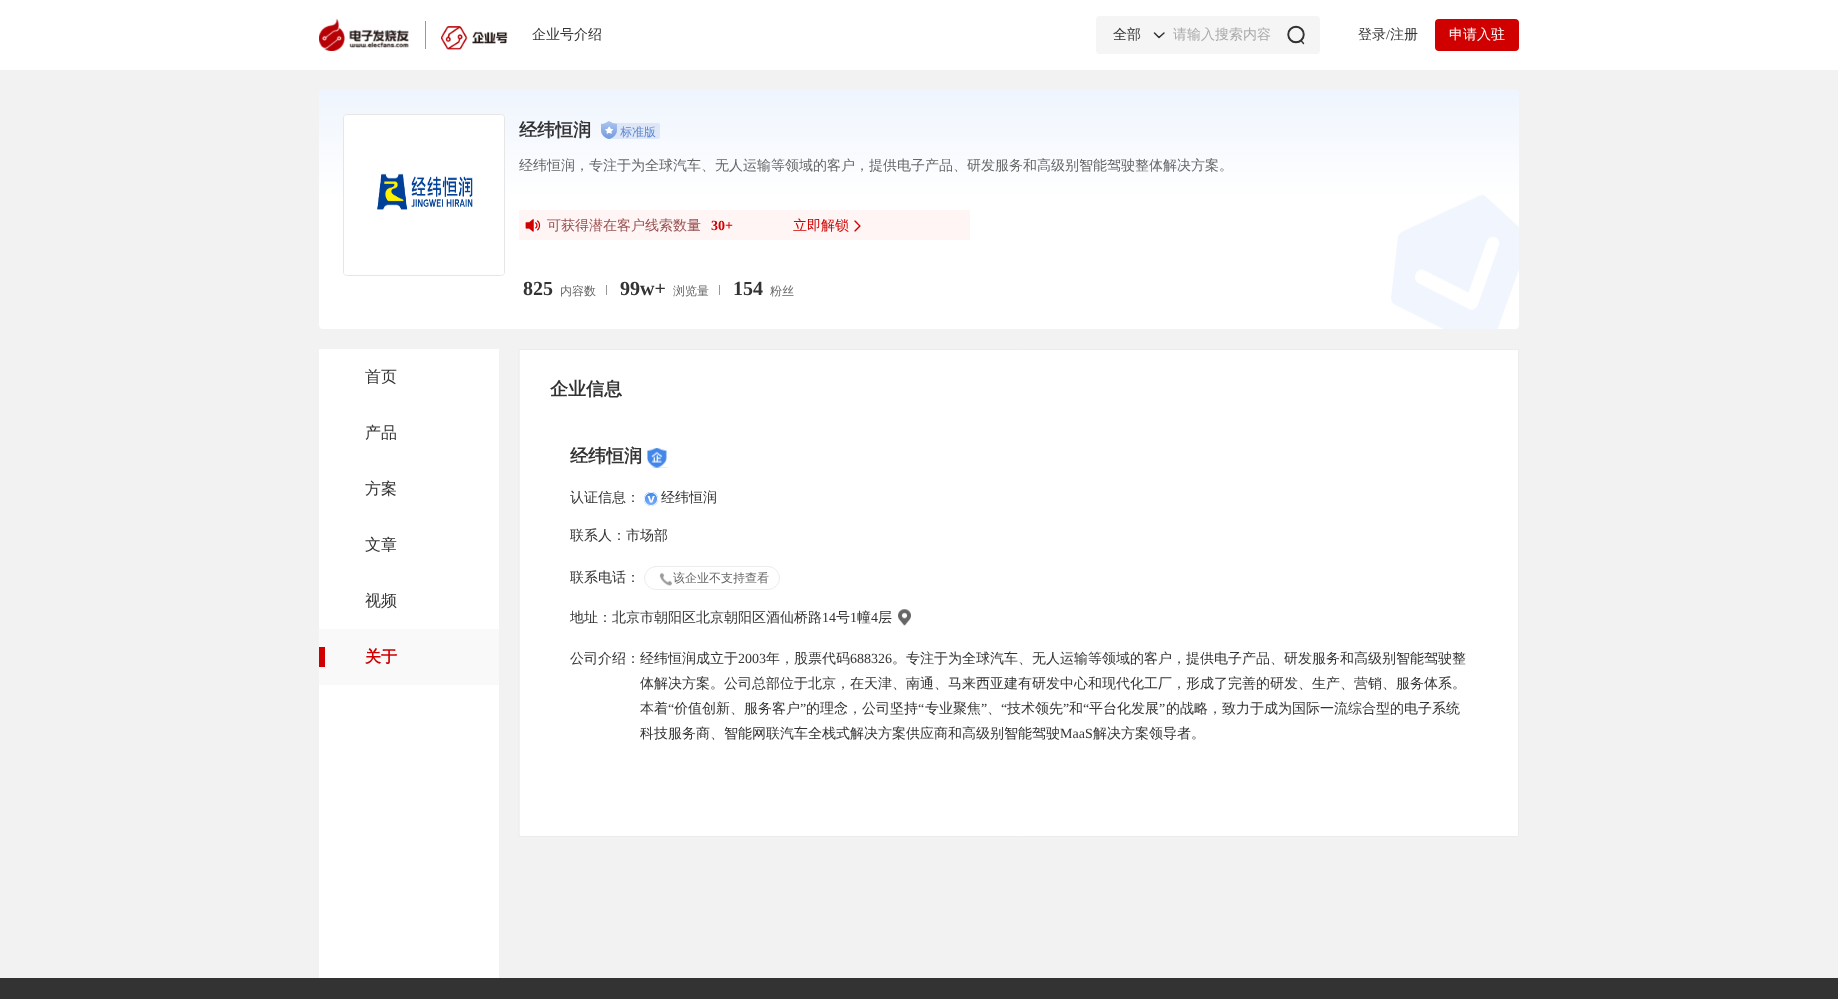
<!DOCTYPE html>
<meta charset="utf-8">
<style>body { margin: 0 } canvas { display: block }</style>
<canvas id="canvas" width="1838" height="999"></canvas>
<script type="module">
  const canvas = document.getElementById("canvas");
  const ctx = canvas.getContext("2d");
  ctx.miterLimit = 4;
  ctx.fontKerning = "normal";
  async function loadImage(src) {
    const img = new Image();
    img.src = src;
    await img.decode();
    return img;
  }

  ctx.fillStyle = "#f2f2f2";
  ctx.fillRect(0, 0, 1838, 999);
  ctx.fillStyle = "#ffffff";
  ctx.fillRect(0, 0, 1838, 70);
  ctx.drawImage(await loadImage("img1.png"), 319, 19, 90, 32);
  ctx.fillStyle = "#999999";
  ctx.fillRect(425, 21, 1, 28);
  ctx.drawImage(await loadImage("img2.png"), 441, 26, 67, 24);
  ctx.font = "500 14px WenQuanYi Zen Hei";
  ctx.fillStyle = "#333333";
  ctx.fillText("企业号介绍", 532, 39);
  ctx.fillStyle = "#f5f5f5";
  ctx.beginPath();
  ctx.roundRect(1096, 16, 224, 38, 4);
  ctx.fill();
  ctx.fillStyle = "#333333";
  ctx.fillText("全部", 1113, 39);
  ctx.beginPath();
  ctx.moveTo(1164, 33);
  ctx.lineTo(1159, 37.5);
  ctx.lineTo(1154.5, 33);
  ctx.strokeStyle = "#333333";
  ctx.lineWidth = 1.5;
  ctx.lineCap = "round";
  ctx.lineJoin = "round";
  ctx.stroke();
  ctx.fillStyle = "#aaaaaa";
  ctx.fillText("请输入搜索内容", 1173, 39);
  ctx.beginPath();
  ctx.arc(1296, 34.5, 8, 0, Math.PI * 2);
  ctx.lineWidth = 1.4;
  ctx.stroke();
  ctx.beginPath();
  ctx.arc(1296, 34.5, 7.5, 0, Math.PI * 2);
  ctx.stroke();
  ctx.beginPath();
  ctx.moveTo(1301, 40.5);
  ctx.lineTo(1303.5, 43.5);
  ctx.lineJoin = "miter";
  ctx.stroke();
  ctx.fillStyle = "#333333";
  ctx.fillText("登录", 1358, 39);
  ctx.font = "14px Liberation Serif";
  ctx.fillText("/", 1386, 39);
  ctx.font = "500 14px WenQuanYi Zen Hei";
  ctx.fillText("注册", 1390, 39);
  ctx.fillStyle = "#d00000";
  ctx.beginPath();
  ctx.roundRect(1435, 19, 84, 32, 4);
  ctx.fill();
  ctx.fillStyle = "#ffffff";
  ctx.fillText("申请入驻", 1449, 39);
  ctx.drawImage(await loadImage("img3.png"), 319, 90, 1200, 239);
  ctx.beginPath();
  ctx.roundRect(343.5, 114.5, 161, 161, 3.5);
  ctx.strokeStyle = "#e6e6e6";
  ctx.lineWidth = 1;
  ctx.stroke();
  ctx.drawImage(await loadImage("img4.png"), 344, 115, 160, 160);
  ctx.font = "bold 18px WenQuanYi Zen Hei";
  ctx.fillStyle = "#333333";
  ctx.fillText("经纬恒润", 519, 136);
  ctx.drawImage(await loadImage("img5.png"), 601, 121, 59, 18);
  ctx.font = "500 14px WenQuanYi Zen Hei";
  ctx.fillStyle = "#666666";
  ctx.fillText("经纬恒润，专注于为全球汽车、无人运输等领域的客户，提供电子产品、研发服务和高级别智能驾驶整体解决方案。", 519, 170);
  ctx.fillStyle = "#fff5f4";
  ctx.fillRect(519, 210, 451, 30);
  ctx.drawImage(await loadImage("img6.png"), 525, 219, 16, 13);
  ctx.fillStyle = "#9a5151";
  ctx.fillText("可获得潜在客户线索数量", 547, 230);
  ctx.font = "bold 14px Liberation Serif";
  ctx.fillStyle = "#d00000";
  ctx.fillText("30+", 711, 230);
  ctx.font = "500 14px WenQuanYi Zen Hei";
  ctx.fillText("立即解锁", 793, 230);
  ctx.drawImage(await loadImage("img7.png"), 854, 220, 7, 12);
  ctx.font = "bold 20px Liberation Serif";
  ctx.fillStyle = "#333333";
  ctx.fillText("825", 523, 295);
  ctx.font = "500 12px WenQuanYi Zen Hei";
  ctx.fillStyle = "#666666";
  ctx.fillText("内容数", 560, 295);
  ctx.fillStyle = "#999999";
  ctx.fillRect(606, 285, 1, 10);
  ctx.font = "bold 20px Liberation Serif";
  ctx.fillStyle = "#333333";
  ctx.fillText("99w+", 620, 295);
  ctx.font = "500 12px WenQuanYi Zen Hei";
  ctx.fillStyle = "#666666";
  ctx.fillText("浏览量", 673, 295);
  ctx.fillStyle = "#999999";
  ctx.fillRect(719, 285, 1, 10);
  ctx.font = "bold 20px Liberation Serif";
  ctx.fillStyle = "#333333";
  ctx.fillText("154", 733, 295);
  ctx.font = "500 12px WenQuanYi Zen Hei";
  ctx.fillStyle = "#666666";
  ctx.fillText("粉丝", 770, 295);
  ctx.fillStyle = "#ffffff";
  ctx.fillRect(319, 349, 180, 629);
  ctx.font = "500 16px WenQuanYi Zen Hei";
  ctx.fillStyle = "#333333";
  ctx.fillText("首页", 365, 382);
  ctx.fillText("产品", 365, 438);
  ctx.fillText("方案", 365, 494);
  ctx.fillText("文章", 365, 550);
  ctx.fillText("视频", 365, 606);
  ctx.fillStyle = "#f9f9f9";
  ctx.fillRect(319, 629, 180, 56);
  ctx.fillStyle = "#d00000";
  ctx.fillRect(319, 647, 6, 20);
  ctx.font = "bold 16px WenQuanYi Zen Hei";
  ctx.fillText("关于", 365, 662);
  ctx.fillStyle = "#ffffff";
  ctx.beginPath();
  ctx.rect(519.5, 349.5, 999, 487);
  ctx.fill();
  ctx.strokeStyle = "#ececec";
  ctx.stroke();
  ctx.font = "bold 18px WenQuanYi Zen Hei";
  ctx.fillStyle = "#333333";
  ctx.fillText("企业信息", 550, 395);
  ctx.fillText("经纬恒润", 570, 462);
  ctx.drawImage(await loadImage("img8.png"), 647, 448, 20, 20);
  ctx.font = "500 14px WenQuanYi Zen Hei";
  ctx.fillText("认证信息：", 570, 502);
  ctx.drawImage(await loadImage("img9.png"), 644, 492, 14, 14);
  ctx.fillText("经纬恒润", 661, 502);
  ctx.fillText("联系人：市场部", 570, 540);
  ctx.fillText("联系电话：", 570, 582);
  ctx.beginPath();
  ctx.roundRect(644.5, 566.5, 135, 23, 11.5);
  ctx.stroke();
  ctx.drawImage(await loadImage("img10.png"), 659, 573, 13, 13);
  ctx.font = "500 12px WenQuanYi Zen Hei";
  ctx.fillStyle = "#666666";
  ctx.fillText("该企业不支持查看", 673, 582);
  ctx.font = "500 14px WenQuanYi Zen Hei";
  ctx.fillStyle = "#333333";
  ctx.fillText("地址：北京市朝阳区北京朝阳区酒仙桥路", 570, 622);
  ctx.font = "14px Liberation Serif";
  ctx.fillText("14", 822, 622);
  ctx.font = "500 14px WenQuanYi Zen Hei";
  ctx.fillText("号", 836, 622);
  ctx.font = "14px Liberation Serif";
  ctx.fillText("1", 850, 622);
  ctx.font = "500 14px WenQuanYi Zen Hei";
  ctx.fillText("幢", 857, 622);
  ctx.font = "14px Liberation Serif";
  ctx.fillText("4", 871, 622);
  ctx.font = "500 14px WenQuanYi Zen Hei";
  ctx.fillText("层", 878, 622);
  ctx.drawImage(await loadImage("img11.png"), 898, 609, 13, 17);
  ctx.fillText("公司介绍：经纬恒润成立于", 570, 663);
  ctx.font = "14px Liberation Serif";
  ctx.fillText("2003", 738, 663);
  ctx.font = "500 14px WenQuanYi Zen Hei";
  ctx.fillText("年，股票代码", 766, 663);
  ctx.font = "14px Liberation Serif";
  ctx.fillText("688326", 850, 663);
  ctx.font = "500 14px WenQuanYi Zen Hei";
  ctx.fillText("。专注于为全球汽车、无人运输等领域的客户，提供电子产品、研发服务和高级别智能驾驶整", 892, 663);
  ctx.fillText("体解决方案。公司总部位于北京，在天津、南通、马来西亚建有研发中心和现代化工厂，形成了完善的研发、生产、营销、服务体系。", 640, 688);
  ctx.fillText("本着", 640, 713);
  ctx.font = "14px Liberation Serif";
  ctx.fillText("“", 668, 713);
  ctx.font = "500 14px WenQuanYi Zen Hei";
  ctx.fillText("价值创新、服务客户", 674, 713);
  ctx.font = "14px Liberation Serif";
  ctx.fillText("”", 800, 713);
  ctx.font = "500 14px WenQuanYi Zen Hei";
  ctx.fillText("的理念，公司坚持", 806, 713);
  ctx.font = "14px Liberation Serif";
  ctx.fillText("“", 918, 713);
  ctx.font = "500 14px WenQuanYi Zen Hei";
  ctx.fillText("专业聚焦", 925, 713);
  ctx.font = "14px Liberation Serif";
  ctx.fillText("”", 981, 713);
  ctx.fillText("“", 1001, 713);
  ctx.font = "500 14px WenQuanYi Zen Hei";
  ctx.fillText("技术领先", 1007, 713);
  ctx.font = "14px Liberation Serif";
  ctx.fillText("”", 1063, 713);
  ctx.font = "500 14px WenQuanYi Zen Hei";
  ctx.fillText("和", 1069, 713);
  ctx.font = "14px Liberation Serif";
  ctx.fillText("“", 1083, 713);
  ctx.font = "500 14px WenQuanYi Zen Hei";
  ctx.fillText("平台化发展", 1089, 713);
  ctx.font = "14px Liberation Serif";
  ctx.fillText("”", 1159, 713);
  ctx.font = "500 14px WenQuanYi Zen Hei";
  ctx.fillText("的战略，致力于成为国际一流综合型的电子系统", 1166, 713);
  ctx.fillText("、", 987, 713);
  ctx.fillText("科技服务商、智能网联汽车全栈式解决方案供应商和高级别智能驾驶", 640, 738);
  ctx.font = "14px Liberation Serif";
  ctx.fillText("MaaS", 1060, 738);
  ctx.font = "500 14px WenQuanYi Zen Hei";
  ctx.fillText("解决方案领导者。", 1093, 738);
  ctx.fillRect(0, 978, 1838, 21);
</script>
